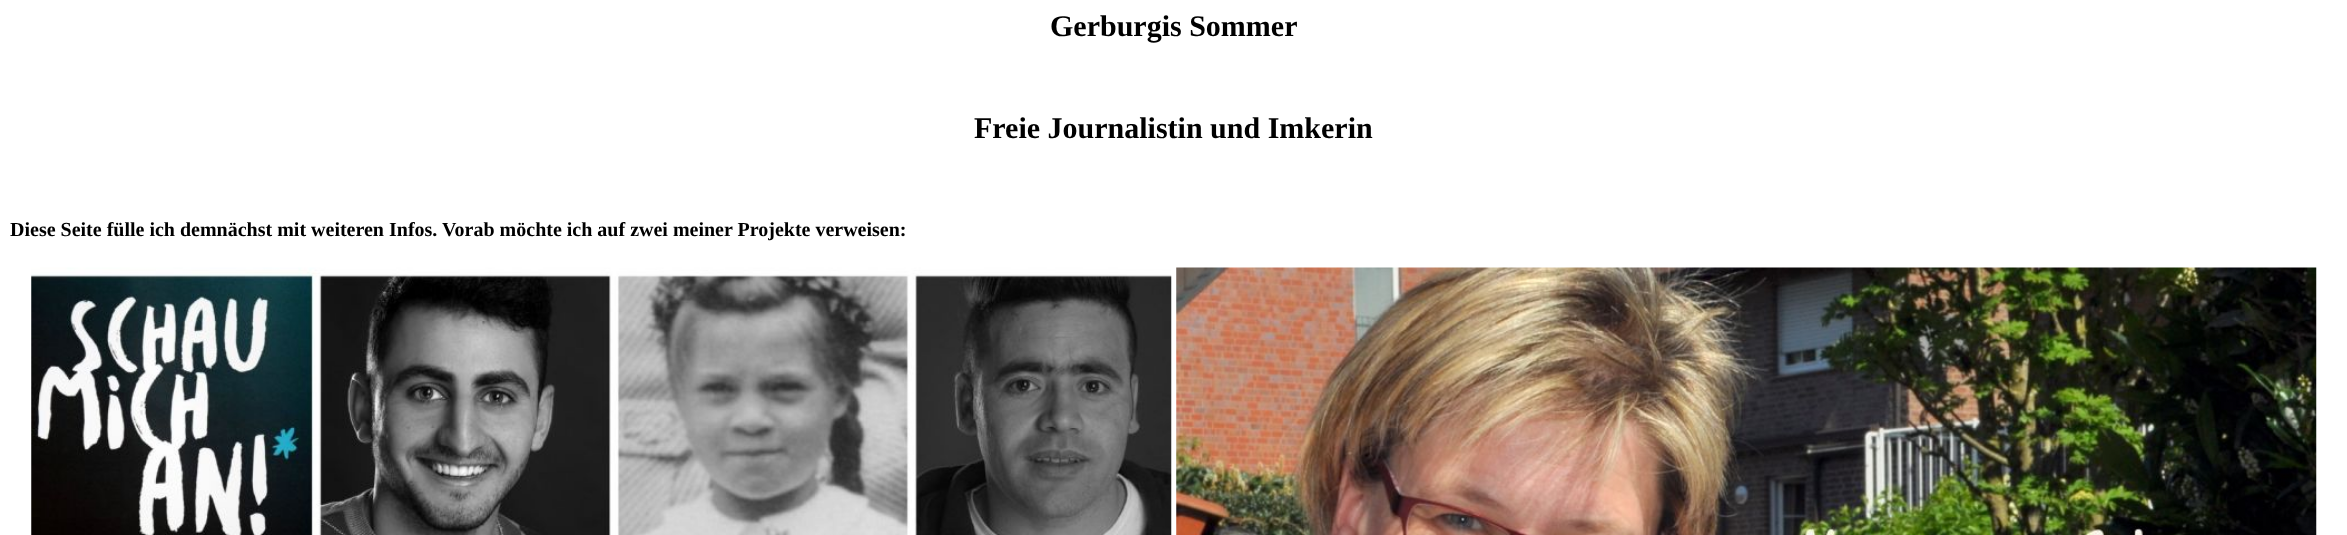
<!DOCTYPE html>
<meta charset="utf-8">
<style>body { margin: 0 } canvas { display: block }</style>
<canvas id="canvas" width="2347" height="535"></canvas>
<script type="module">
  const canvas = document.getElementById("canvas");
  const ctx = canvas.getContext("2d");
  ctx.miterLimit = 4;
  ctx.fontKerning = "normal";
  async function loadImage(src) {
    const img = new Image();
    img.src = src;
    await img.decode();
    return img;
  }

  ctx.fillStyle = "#ffffff";
  ctx.fillRect(0, 0, 2347, 535);
  ctx.font = "bold 30px Liberation Serif";
  ctx.fillStyle = "#000000";
  ctx.fillText("Gerburgis Sommer", 1050, 36);
  ctx.fillText("Freie Journalistin und Imkerin", 974, 138);
  ctx.font = "bold 20px Liberation Serif";
  ctx.fillText("Diese Seite fülle ich demnächst mit weiteren Infos. Vorab möchte ich auf zwei meiner Projekte verweisen:", 10, 236);
  ctx.drawImage(await loadImage("img1.png"), 31, 267, 1141, 268);
  ctx.drawImage(await loadImage("img2.png"), 1176, 267, 1141, 268);
</script>
